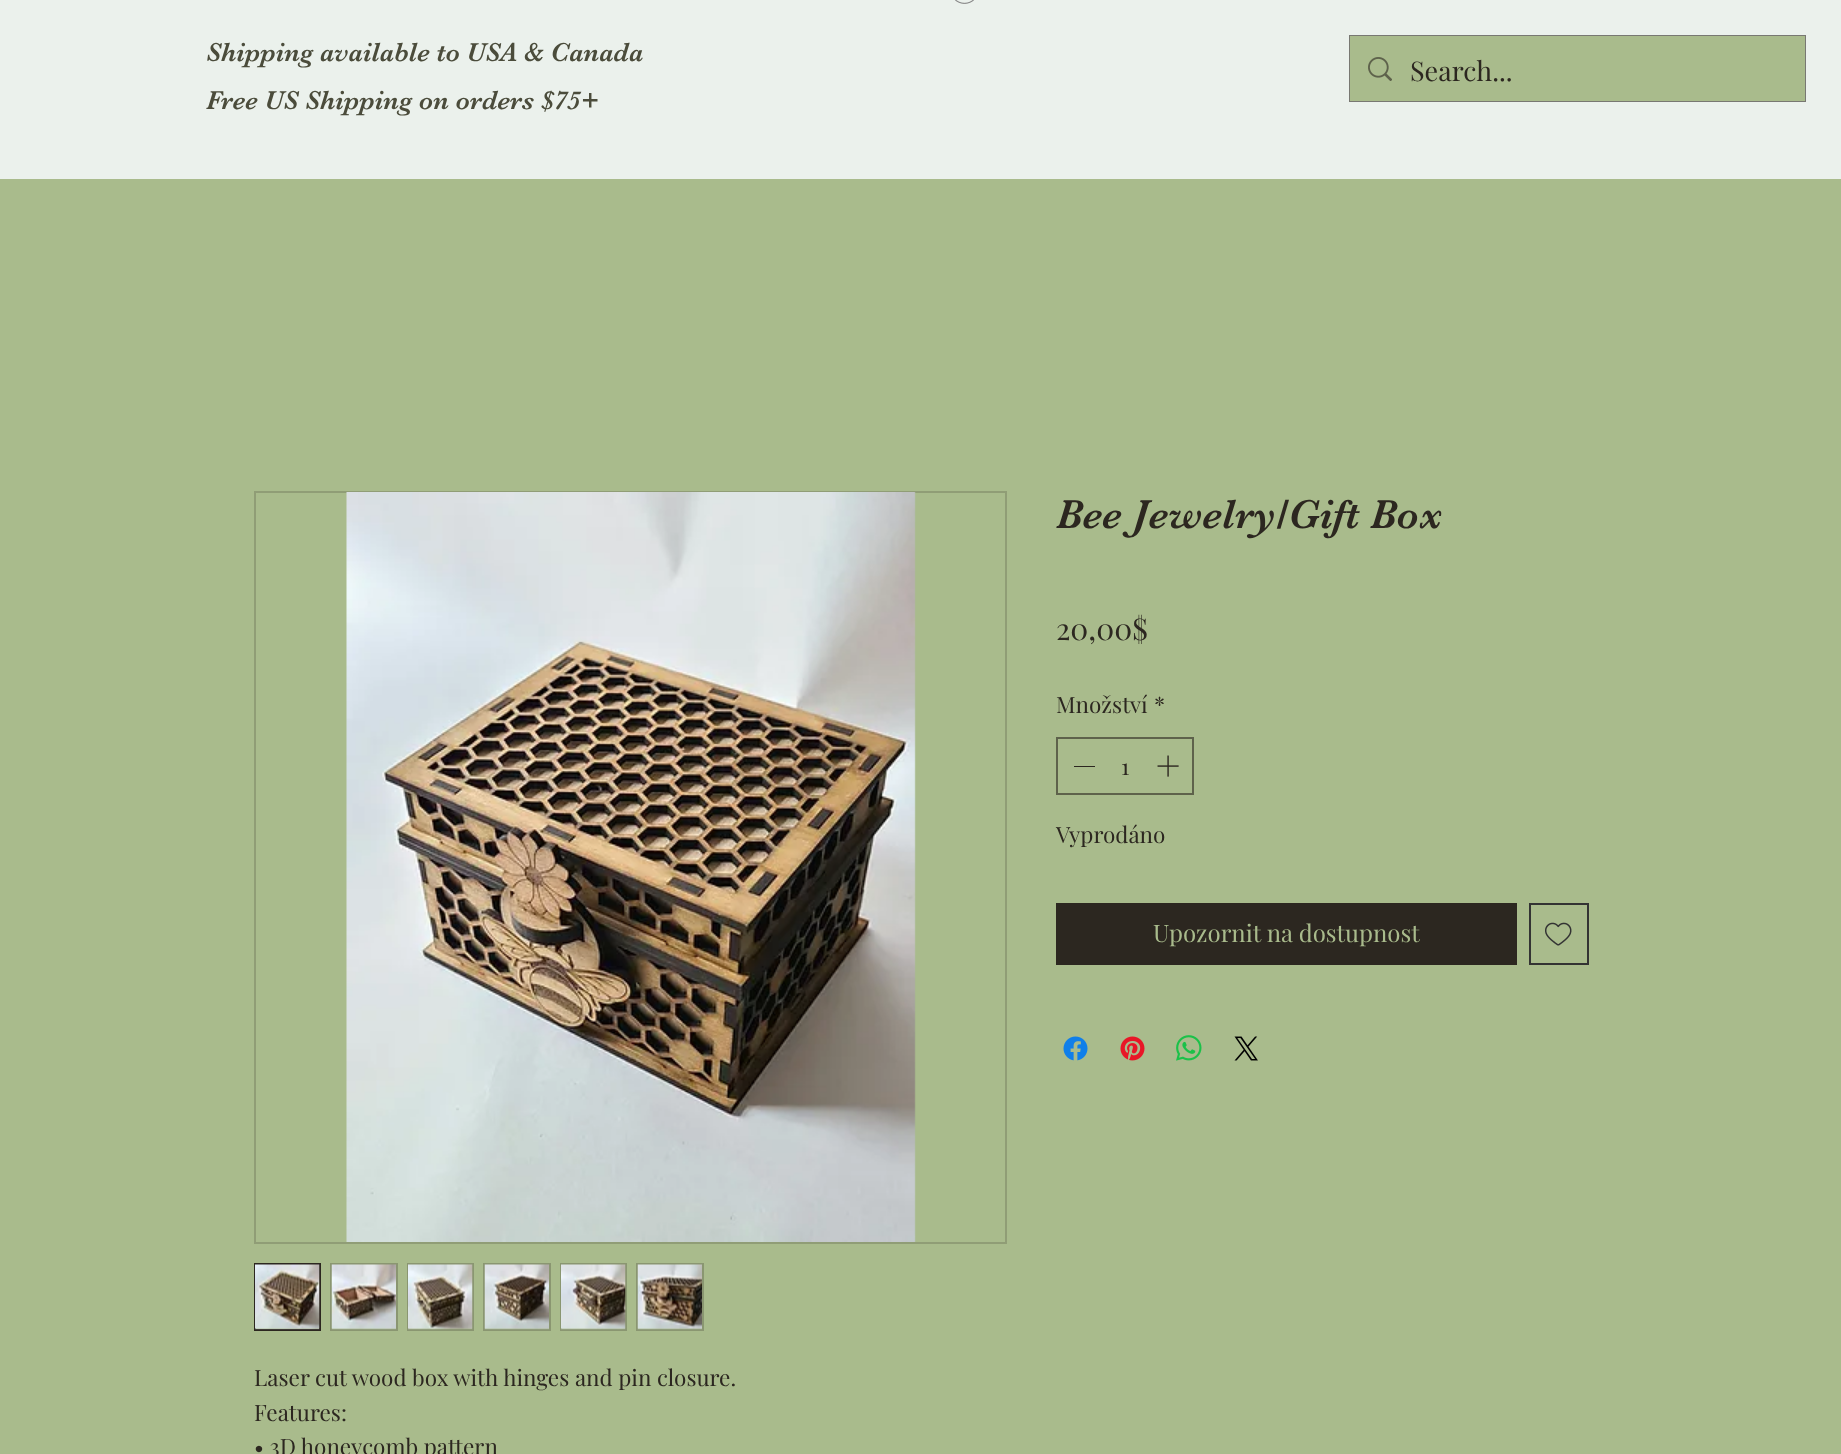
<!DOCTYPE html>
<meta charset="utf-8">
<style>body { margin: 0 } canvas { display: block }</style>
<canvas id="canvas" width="1841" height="1454"></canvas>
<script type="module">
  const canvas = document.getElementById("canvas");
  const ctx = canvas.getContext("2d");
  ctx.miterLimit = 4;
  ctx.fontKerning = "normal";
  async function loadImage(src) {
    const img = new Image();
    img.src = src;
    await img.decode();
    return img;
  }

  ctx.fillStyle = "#a9bb8c";
  ctx.fillRect(0, 0, 1841, 1454);
  ctx.fillStyle = "#ebf1ec";
  ctx.fillRect(0, 0, 1841, 179);
  ctx.drawImage(await loadImage("img1.png"), 955, 0, 19, 4);
  ctx.font = "27px 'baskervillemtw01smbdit'";
  ctx.fillStyle = "#4b4c3b";
  ctx.fillText("Shipping available to USA & Canada", 206, 61);
  ctx.fillText("Free US Shipping on orders $75+", 206, 109);
  ctx.strokeStyle = "#787872";
  ctx.lineWidth = 2;
  ctx.strokeRect(1350, 36, 455, 65);
  ctx.fillStyle = "#a9bb8c";
  ctx.fillRect(1350, 36, 455, 65);
  ctx.drawImage(await loadImage("img2.png"), 1368, 57, 24, 24);
  ctx.font = "27px Playfair Display";
  ctx.fillStyle = "#2c2720";
  ctx.fillText("Search...", 1410, 81);
  ctx.font = "42px 'baskervillemtw01smbdit'";
  ctx.fillText("Bee Jewelry/Gift Box", 1056, 528);
  ctx.font = "30px Playfair Display";
  ctx.fillText("20,00$", 1056, 640);
  ctx.font = "22.5px Playfair Display";
  ctx.fillText("Množství", 1056, 713);
  ctx.fillText("*", 1154, 713);
  ctx.strokeStyle = "#5e624b";
  ctx.strokeRect(1057, 738, 136, 56);
  ctx.fillRect(1074, 766, 21, 1);
  ctx.fillText("1", 1121, 775);
  ctx.drawImage(await loadImage("img3.png"), 1157, 755, 22, 22);
  ctx.fillText("Vyprodáno", 1056, 843);
  ctx.fillRect(1056, 903, 461, 62);
  ctx.font = "24px Playfair Display";
  ctx.fillStyle = "#a9bb8c";
  ctx.fillText("Upozornit na dostupnost", 1153, 942);
  ctx.strokeStyle = "#333333";
  ctx.strokeRect(1530, 904, 58, 60);
  ctx.drawImage(await loadImage("img4.png"), 1545, 922, 27, 24);
  ctx.drawImage(await loadImage("img5.png"), 1063, 1036, 25, 25);
  ctx.drawImage(await loadImage("img6.png"), 1120, 1036, 25, 25);
  ctx.drawImage(await loadImage("img7.png"), 1176, 1035, 26, 26);
  ctx.drawImage(await loadImage("img8.png"), 1234, 1036, 24, 25);
  ctx.strokeStyle = "#909d76";
  ctx.strokeRect(255, 492, 751, 751);
  ctx.drawImage(await loadImage("img9.png"), 346, 492, 570, 750);
  ctx.strokeStyle = "#2c2720";
  ctx.strokeRect(255, 1264, 65, 66);
  ctx.drawImage(await loadImage("img10.png"), 255, 1264, 65, 66);
  ctx.strokeStyle = "#8a9671";
  ctx.strokeRect(331, 1264, 66, 66);
  ctx.drawImage(await loadImage("img11.png"), 331, 1264, 65, 66);
  ctx.strokeRect(408, 1264, 65, 66);
  ctx.drawImage(await loadImage("img12.png"), 408, 1264, 65, 66);
  ctx.strokeRect(484, 1264, 66, 66);
  ctx.drawImage(await loadImage("img13.png"), 484, 1264, 65, 66);
  ctx.strokeRect(561, 1264, 65, 66);
  ctx.drawImage(await loadImage("img14.png"), 561, 1264, 65, 66);
  ctx.strokeRect(637, 1264, 66, 66);
  ctx.drawImage(await loadImage("img15.png"), 637, 1264, 65, 66);
  ctx.font = "22.5px Playfair Display";
  ctx.fillStyle = "#2c2720";
  ctx.fillText("Laser cut wood box with hinges and pin closure.", 254, 1386);
  ctx.fillText("Features:", 254, 1421);
  ctx.fillText("• 3D honeycomb pattern", 254, 1455);
</script>
